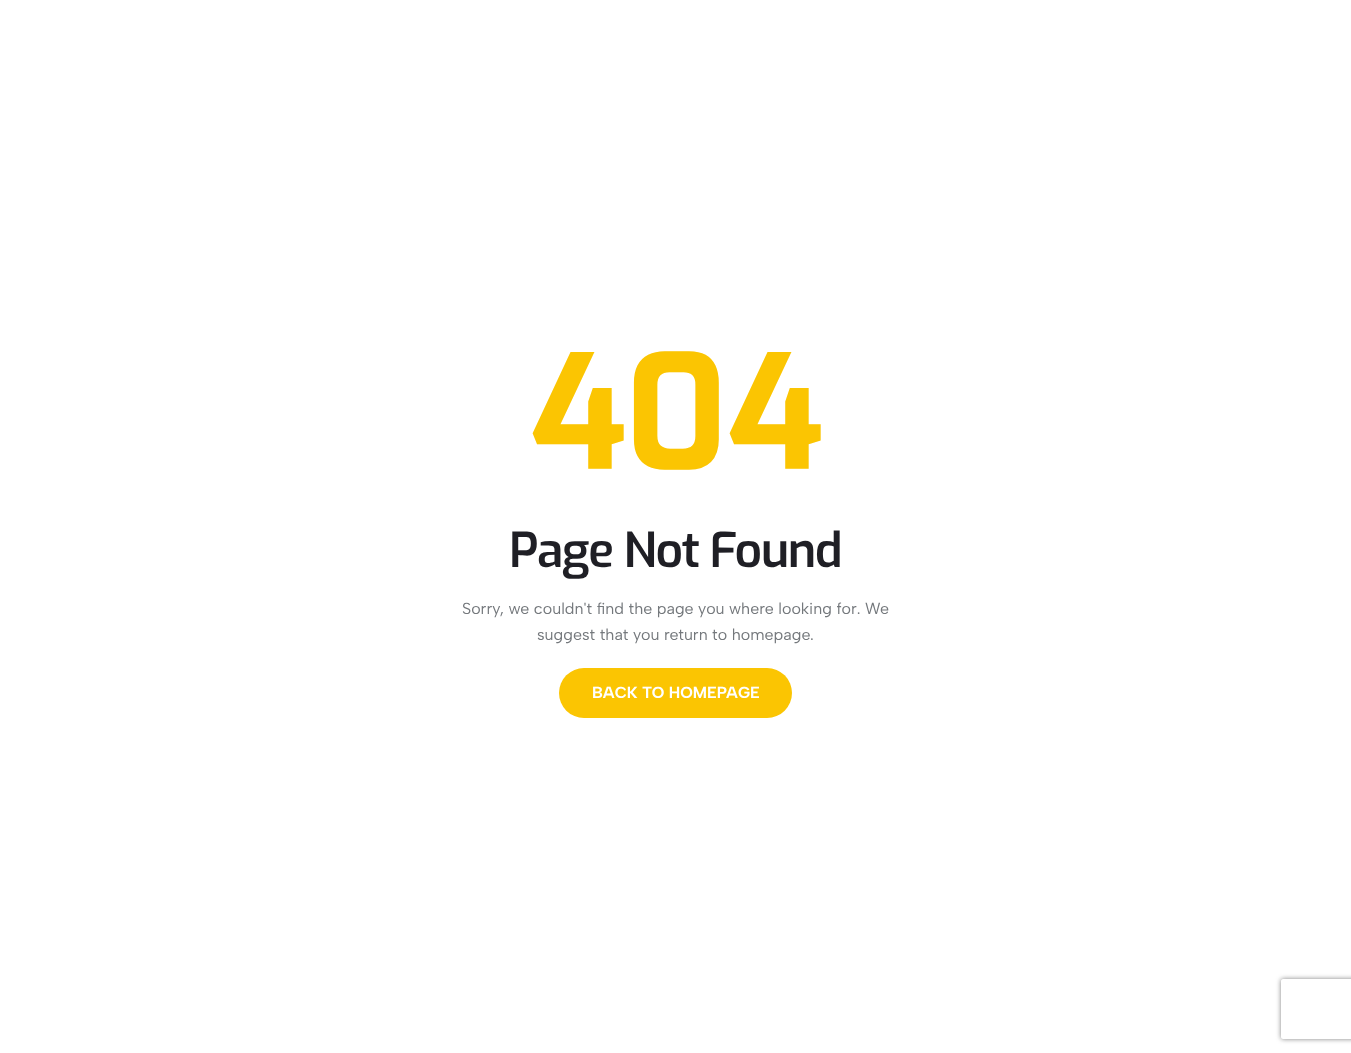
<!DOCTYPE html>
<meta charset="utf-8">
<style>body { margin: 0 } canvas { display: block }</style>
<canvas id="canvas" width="1351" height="1053"></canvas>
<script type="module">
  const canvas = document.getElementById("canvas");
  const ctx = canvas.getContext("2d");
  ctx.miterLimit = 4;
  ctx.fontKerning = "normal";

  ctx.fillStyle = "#ffffff";
  ctx.fillRect(0, 0, 1351, 1053);
  ctx.letterSpacing = "-1.5px";
  ctx.font = "bold 158px Exo";
  ctx.fillStyle = "#fbc502";
  ctx.fillText("404", 529, 469);
  ctx.font = "600 48px Exo";
  ctx.fillStyle = "#1f1f25";
  ctx.fillText("Page Not Found", 509, 567);
  ctx.letterSpacing = "0px";
  ctx.font = "16px Albert Sans";
  ctx.fillStyle = "#74787c";
  ctx.fillText("Sorry, we couldn't find the page you where looking for. We", 462, 614);
  ctx.fillText("suggest that you return to homepage.", 537, 640);
  ctx.fillStyle = "#fbc502";
  ctx.beginPath();
  ctx.roundRect(559, 668, 233, 50, 25);
  ctx.fill();
  ctx.font = "bold 16px Albert Sans";
  ctx.fillStyle = "#ffffff";
  ctx.fillText("BACK TO HOMEPAGE", 592, 698);
  ctx.save();
  ctx.beginPath();
  ctx.moveTo(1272, 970);
  ctx.lineTo(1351, 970);
  ctx.lineTo(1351, 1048);
  ctx.lineTo(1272, 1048);
  ctx.closePath();
  ctx.moveTo(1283, 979);
  ctx.lineTo(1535, 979);
  ctx.bezierCurveTo(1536, 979, 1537, 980, 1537, 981);
  ctx.lineTo(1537, 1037);
  ctx.bezierCurveTo(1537, 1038, 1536, 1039, 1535, 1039);
  ctx.lineTo(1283, 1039);
  ctx.bezierCurveTo(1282, 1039, 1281, 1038, 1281, 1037);
  ctx.lineTo(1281, 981);
  ctx.bezierCurveTo(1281, 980, 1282, 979, 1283, 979);
  ctx.closePath();
  ctx.clip("evenodd");
  ctx.fillStyle = "#808080";
  ctx.filter = "blur(2.5px)";
  ctx.beginPath();
  ctx.roundRect(1281, 979, 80, 60, 2);
  ctx.fill();
  ctx.filter = "none";
  ctx.restore();
</script>
